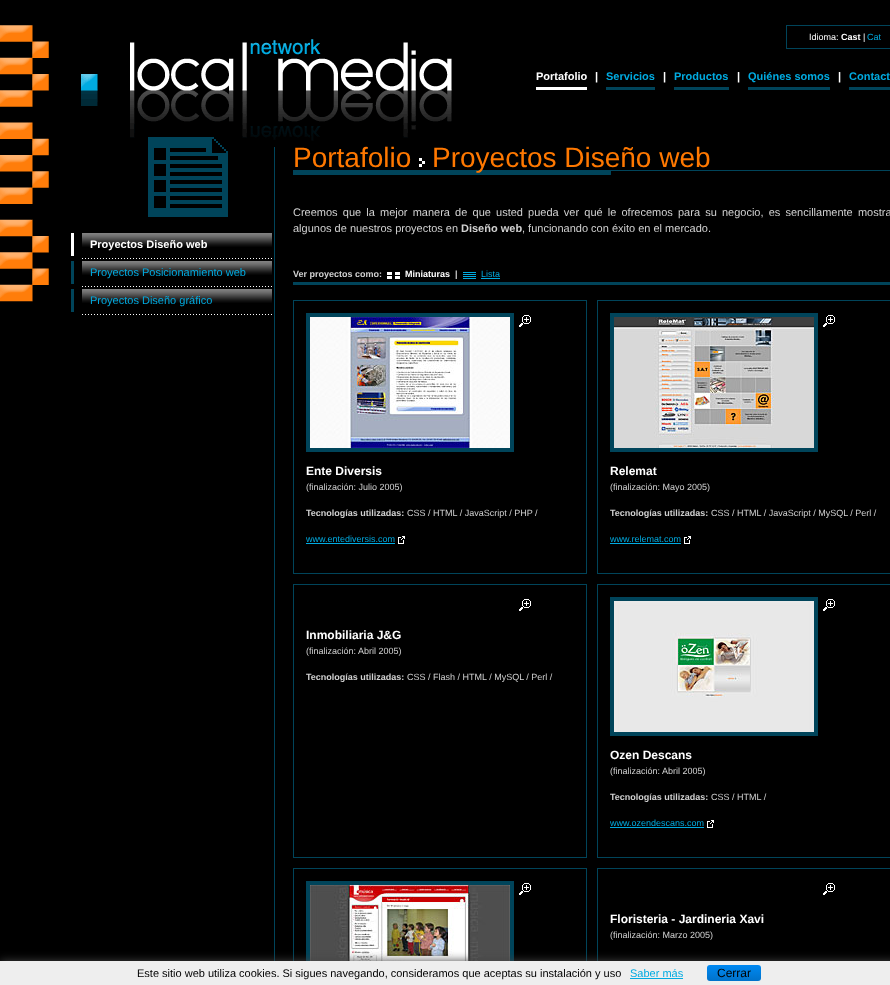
<!DOCTYPE html>
<meta charset="utf-8">
<style>body { margin: 0 } canvas { display: block }</style>
<canvas id="canvas" width="890" height="985"></canvas>
<script type="module">
  const canvas = document.getElementById("canvas");
  const ctx = canvas.getContext("2d");
  ctx.miterLimit = 4;
  ctx.fontKerning = "normal";
  async function loadImage(src) {
    const img = new Image();
    img.src = src;
    await img.decode();
    return img;
  }
  let gradient;

  ctx.fillStyle = "#000000";
  ctx.fillRect(0, 0, 890, 985);
  ctx.drawImage(await loadImage("img1.png"), 0, 25, 452, 277);
  ctx.strokeStyle = "#00445a";
  ctx.strokeRect(786.5, 25.5, 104, 23);
  ctx.font = "9px Liberation Sans";
  ctx.fillStyle = "#ffffff";
  ctx.fillText("Idioma:", 809, 40);
  ctx.font = "bold 9px Liberation Sans";
  ctx.fillText("Cast", 841, 40);
  ctx.font = "9px Liberation Sans";
  ctx.fillText("|", 863, 40);
  ctx.fillStyle = "#00abe1";
  ctx.fillText("Cat", 867, 40);
  ctx.fillStyle = "#ffffff";
  ctx.fillRect(536, 87, 51, 3);
  ctx.font = "bold 11px Liberation Sans";
  ctx.fillText("Portafolio", 536, 80);
  ctx.fillText("|", 595, 80);
  ctx.fillStyle = "#00445a";
  ctx.fillRect(606, 87, 49, 3);
  ctx.fillStyle = "#00abe1";
  ctx.fillText("Servicios", 606, 80);
  ctx.fillStyle = "#ffffff";
  ctx.fillText("|", 663, 80);
  ctx.fillStyle = "#00445a";
  ctx.fillRect(674, 87, 55, 3);
  ctx.fillStyle = "#00abe1";
  ctx.fillText("Productos", 674, 80);
  ctx.fillStyle = "#ffffff";
  ctx.fillText("|", 737, 80);
  ctx.fillStyle = "#00445a";
  ctx.fillRect(748, 87, 82, 3);
  ctx.fillStyle = "#00abe1";
  ctx.fillText("Quiénes somos", 748, 80);
  ctx.fillStyle = "#ffffff";
  ctx.fillText("|", 838, 80);
  ctx.fillStyle = "#00445a";
  ctx.fillRect(849, 87, 41, 3);
  ctx.fillStyle = "#00abe1";
  ctx.fillText("Contact", 849, 80);
  ctx.drawImage(await loadImage("img2.png"), 71, 233, 201, 26);
  ctx.fillStyle = "#ffffff";
  ctx.fillRect(71, 233, 3, 23);
  ctx.fillText("Proyectos Diseño web", 90, 248);
  ctx.drawImage(await loadImage("img2.png"), 71, 261, 201, 26);
  ctx.font = "11px Liberation Sans";
  ctx.fillStyle = "#00abe1";
  ctx.fillText("Proyectos Posicionamiento web", 90, 276);
  ctx.drawImage(await loadImage("img2.png"), 71, 289, 201, 26);
  ctx.fillText("Proyectos Diseño gráfico", 90, 304);
  ctx.fillStyle = "#00445a";
  ctx.fillRect(274, 147, 1, 814);
  ctx.drawImage(await loadImage("img3.png"), 293, 170, 597, 5);
  ctx.font = "28px Liberation Sans";
  ctx.fillStyle = "#ff7800";
  ctx.fillText("Portafolio", 293, 167);
  ctx.drawImage(await loadImage("img4.png"), 419, 158, 6, 9);
  ctx.fillText("Proyectos Diseño web", 432, 167);
  ctx.wordSpacing = "2.1px";
  ctx.font = "11px Liberation Sans";
  ctx.fillStyle = "#d1d1d1";
  ctx.fillText("Creemos que la mejor manera de que usted pueda ver qué le ofrecemos para su negocio, es sencillamente mostra", 293, 216);
  ctx.wordSpacing = "0px";
  ctx.fillText("algunos de nuestros proyectos en", 293, 232);
  ctx.font = "bold 11px Liberation Sans";
  ctx.fillText("Diseño web", 461, 232);
  ctx.font = "11px Liberation Sans";
  ctx.fillText(", funcionando con éxito en el mercado.", 522, 232);
  ctx.fillStyle = "#00445a";
  ctx.fillRect(293, 282, 597, 3);
  ctx.font = "bold 9px Liberation Sans";
  ctx.fillStyle = "#d1d1d1";
  ctx.fillText("Ver proyectos como:", 293, 277);
  ctx.drawImage(await loadImage("img5.png"), 387, 272, 13, 7);
  ctx.fillStyle = "#ffffff";
  ctx.fillText("Miniaturas", 405, 277);
  ctx.fillStyle = "#d1d1d1";
  ctx.fillText("|", 455, 277);
  ctx.drawImage(await loadImage("img6.png"), 463, 272, 13, 7);
  ctx.font = "9px Liberation Sans";
  ctx.fillStyle = "#00abe1";
  ctx.fillText("Lista", 481, 277);
  ctx.fillRect(481, 278, 19, 1);
  ctx.drawImage(await loadImage("img7.png"), 519, 315, 12, 12);
  ctx.strokeRect(293.5, 300.5, 293, 273);
  ctx.lineWidth = 4;
  ctx.strokeRect(308, 315, 204, 135);
  ctx.drawImage(await loadImage("img8.png"), 310, 317, 200, 131);
  ctx.font = "bold 12px Liberation Sans";
  ctx.fillStyle = "#ffffff";
  ctx.fillText("Ente Diversis", 306, 475);
  ctx.font = "9px Liberation Sans";
  ctx.fillStyle = "#d1d1d1";
  ctx.fillText("(finalización: Julio 2005)", 306, 490);
  ctx.font = "bold 9px Liberation Sans";
  ctx.fillText("Tecnologías utilizadas:", 306, 516);
  ctx.font = "9px Liberation Sans";
  ctx.fillText("CSS / HTML / JavaScript / PHP /", 407, 516);
  ctx.fillStyle = "#00abe1";
  ctx.fillText("www.entediversis.com", 306, 542);
  ctx.fillRect(306, 543, 89, 1);
  ctx.drawImage(await loadImage("img9.png"), 398, 536, 7, 8);
  ctx.drawImage(await loadImage("img7.png"), 823, 315, 12, 12);
  ctx.lineWidth = 1;
  ctx.strokeRect(597.5, 300.5, 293, 273);
  ctx.lineWidth = 4;
  ctx.strokeRect(612, 315, 204, 135);
  ctx.drawImage(await loadImage("img10.png"), 614, 317, 200, 131);
  ctx.font = "bold 12px Liberation Sans";
  ctx.fillStyle = "#ffffff";
  ctx.fillText("Relemat", 610, 475);
  ctx.font = "9px Liberation Sans";
  ctx.fillStyle = "#d1d1d1";
  ctx.fillText("(finalización: Mayo 2005)", 610, 490);
  ctx.font = "bold 9px Liberation Sans";
  ctx.fillText("Tecnologías utilizadas:", 610, 516);
  ctx.font = "9px Liberation Sans";
  ctx.fillText("CSS / HTML / JavaScript / MySQL / Perl /", 711, 516);
  ctx.fillStyle = "#00abe1";
  ctx.fillText("www.relemat.com", 610, 542);
  ctx.fillRect(610, 543, 71, 1);
  ctx.drawImage(await loadImage("img9.png"), 684, 536, 7, 8);
  ctx.drawImage(await loadImage("img7.png"), 519, 599, 12, 12);
  ctx.lineWidth = 1;
  ctx.strokeRect(293.5, 584.5, 293, 273);
  ctx.font = "bold 12px Liberation Sans";
  ctx.fillStyle = "#ffffff";
  ctx.fillText("Inmobiliaria J&G", 306, 639);
  ctx.font = "9px Liberation Sans";
  ctx.fillStyle = "#d1d1d1";
  ctx.fillText("(finalización: Abril 2005)", 306, 654);
  ctx.font = "bold 9px Liberation Sans";
  ctx.fillText("Tecnologías utilizadas:", 306, 680);
  ctx.font = "9px Liberation Sans";
  ctx.fillText("CSS / Flash / HTML / MySQL / Perl /", 407, 680);
  ctx.drawImage(await loadImage("img7.png"), 823, 599, 12, 12);
  ctx.strokeRect(597.5, 584.5, 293, 273);
  ctx.lineWidth = 4;
  ctx.strokeRect(612, 599, 204, 135);
  ctx.drawImage(await loadImage("img11.png"), 614, 601, 200, 131);
  ctx.font = "bold 12px Liberation Sans";
  ctx.fillStyle = "#ffffff";
  ctx.fillText("Ozen Descans", 610, 759);
  ctx.font = "9px Liberation Sans";
  ctx.fillStyle = "#d1d1d1";
  ctx.fillText("(finalización: Abril 2005)", 610, 774);
  ctx.font = "bold 9px Liberation Sans";
  ctx.fillText("Tecnologías utilizadas:", 610, 800);
  ctx.font = "9px Liberation Sans";
  ctx.fillText("CSS / HTML /", 711, 800);
  ctx.fillStyle = "#00abe1";
  ctx.fillText("www.ozendescans.com", 610, 826);
  ctx.fillRect(610, 827, 94, 1);
  ctx.drawImage(await loadImage("img9.png"), 707, 820, 7, 8);
  ctx.drawImage(await loadImage("img7.png"), 519, 883, 12, 12);
  ctx.lineWidth = 1;
  ctx.strokeRect(293.5, 868.5, 293, 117);
  ctx.lineWidth = 4;
  ctx.strokeRect(308, 883, 204, 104);
  ctx.drawImage(await loadImage("img12.png"), 310, 885, 200, 76);
  ctx.drawImage(await loadImage("img7.png"), 823, 883, 12, 12);
  ctx.lineWidth = 1;
  ctx.strokeRect(597.5, 868.5, 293, 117);
  ctx.font = "bold 12px Liberation Sans";
  ctx.fillStyle = "#ffffff";
  ctx.fillText("Floristeria - Jardineria Xavi", 610, 923);
  ctx.font = "9px Liberation Sans";
  ctx.fillStyle = "#d1d1d1";
  ctx.fillText("(finalización: Marzo 2005)", 610, 938);
  ctx.fillStyle = "#444444";
  ctx.filter = "blur(5px)";
  ctx.beginPath();
  ctx.rect(0, 961, 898, 24);
  ctx.fill();
  ctx.filter = "none";
  ctx.fillStyle = "#eeeeee";
  ctx.fillRect(0, 961, 890, 24);
  ctx.font = "11px Liberation Sans";
  ctx.fillStyle = "#000000";
  ctx.fillText("Este sitio web utiliza cookies. Si sigues navegando, consideramos que aceptas su instalación y uso", 137, 977);
  ctx.fillStyle = "#00abe1";
  ctx.fillText("Saber más", 630, 977);
  ctx.fillRect(630, 978, 53, 1);
  gradient = ctx.createLinearGradient(734, 965, 734, 981);
  gradient.addColorStop(0, "#0089f2");
  gradient.addColorStop(1, "#0072ca");
  ctx.fillStyle = gradient;
  ctx.beginPath();
  ctx.roundRect(707, 965, 54, 16, 3);
  ctx.fill();
  ctx.font = "12px Liberation Sans";
  ctx.fillStyle = "#000000";
  ctx.fillText("Cerrar", 717, 977);
</script>
